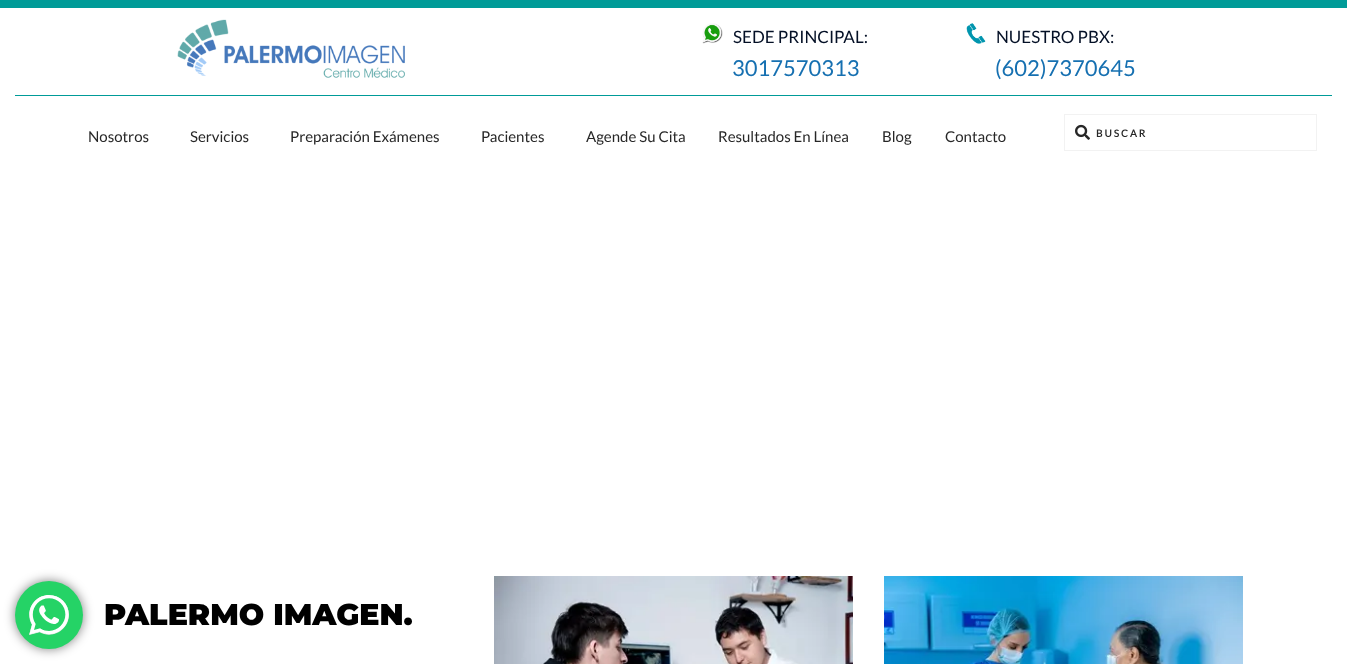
<!DOCTYPE html>
<meta charset="utf-8">
<style>body { margin: 0 } canvas { display: block }</style>
<canvas id="canvas" width="1347" height="664"></canvas>
<script type="module">
  const canvas = document.getElementById("canvas");
  const ctx = canvas.getContext("2d");
  ctx.miterLimit = 4;
  ctx.fontKerning = "normal";
  async function loadImage(src) {
    const img = new Image();
    img.src = src;
    await img.decode();
    return img;
  }

  ctx.fillStyle = "#ffffff";
  ctx.fillRect(0, 0, 1347, 664);
  ctx.fillStyle = "rgba(0, 0, 0, 0.5)";
  ctx.filter = "blur(5.5px)";
  ctx.beginPath();
  ctx.roundRect(15, 581, 68, 68, 34);
  ctx.fill();
  ctx.filter = "none";
  ctx.fillStyle = "#25d366";
  ctx.beginPath();
  ctx.arc(49, 615, 34, 0, Math.PI * 2);
  ctx.fill();
  ctx.drawImage(await loadImage("img1.png"), 29, 595, 40, 40);
  ctx.fillStyle = "#009b98";
  ctx.fillRect(0, 0, 1347, 8);
  ctx.drawImage(await loadImage("img2.png"), 177, 19, 228, 59);
  ctx.drawImage(await loadImage("img3.png"), 702, 23, 21, 21);
  ctx.font = "17px Lato";
  ctx.fillStyle = "#041026";
  ctx.fillText("SEDE PRINCIPAL:", 733, 43);
  ctx.font = "22px Lato";
  ctx.fillStyle = "#1670b1";
  ctx.fillText("3017570313", 732, 76);
  ctx.drawImage(await loadImage("img4.png"), 966, 23, 20, 21);
  ctx.font = "17px Lato";
  ctx.fillStyle = "#041026";
  ctx.fillText("NUESTRO PBX:", 996, 43);
  ctx.font = "22px Lato";
  ctx.fillStyle = "#1670b1";
  ctx.fillText("(602)7370645", 995, 76);
  ctx.fillStyle = "#009b98";
  ctx.fillRect(15, 95, 1317, 1);
  ctx.font = "15px Lato";
  ctx.fillStyle = "#272727";
  ctx.fillText("Nosotros", 88, 142);
  ctx.fillText("Servicios", 190, 142);
  ctx.fillText("Preparación Exámenes", 290, 142);
  ctx.fillText("Pacientes", 481, 142);
  ctx.fillText("Agende Su Cita", 586, 142);
  ctx.fillText("Resultados En Línea", 718, 142);
  ctx.fillText("Blog", 882, 142);
  ctx.fillText("Contacto", 945, 142);
  ctx.strokeStyle = "#f2f2f2";
  ctx.strokeRect(1064.5, 114.5, 252, 36);
  ctx.drawImage(await loadImage("img5.png"), 1075, 124, 15, 16);
  ctx.letterSpacing = "2px";
  ctx.font = "bold 10px Lato";
  ctx.fillText("BUSCAR", 1096, 137);
  ctx.letterSpacing = "0px";
  ctx.font = "100 30px Montserrat";
  ctx.fillStyle = "#000000";
  ctx.fillText("PALERMO IMAGEN.", 104, 625);
  ctx.drawImage(await loadImage("img6.png"), 494, 576, 359, 88);
  ctx.drawImage(await loadImage("img7.png"), 884, 576, 359, 88);
</script>
